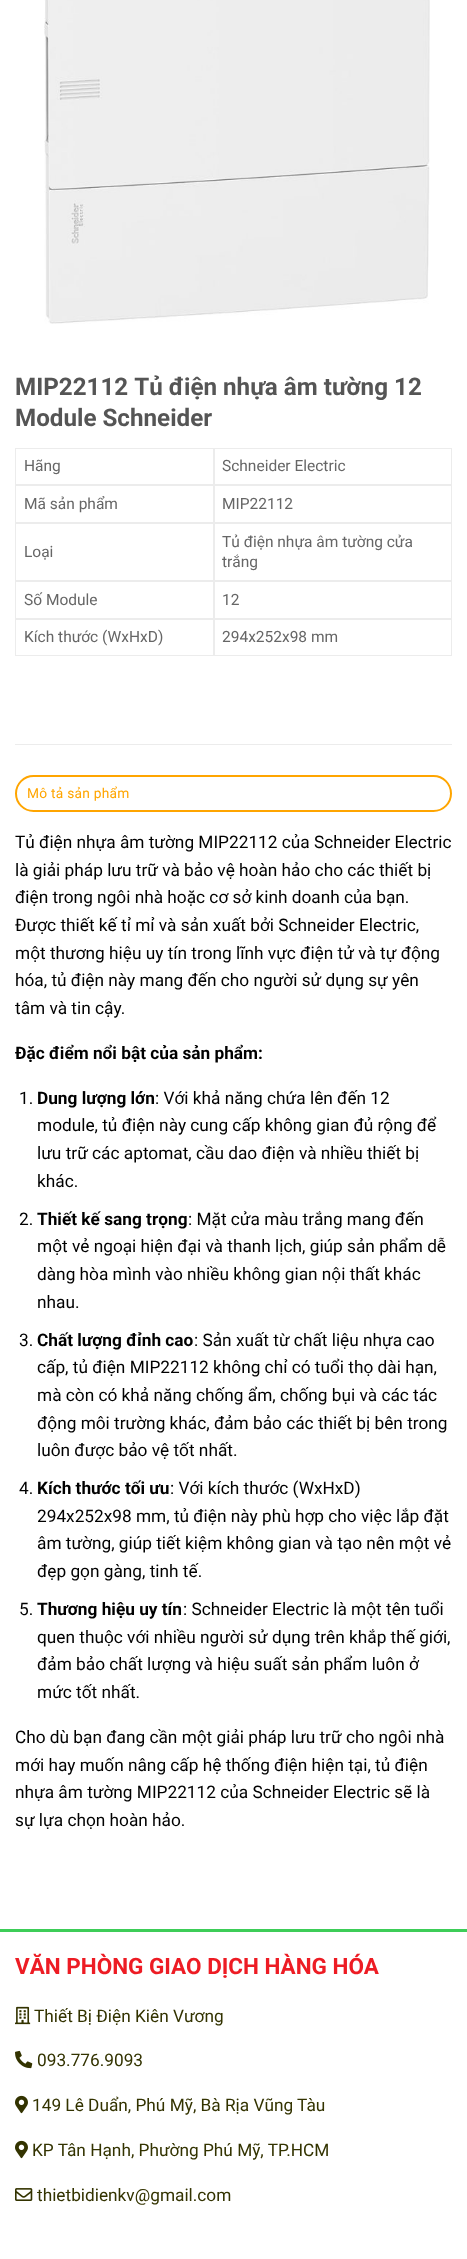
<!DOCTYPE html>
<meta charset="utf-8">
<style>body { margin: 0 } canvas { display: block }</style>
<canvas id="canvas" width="467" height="2259"></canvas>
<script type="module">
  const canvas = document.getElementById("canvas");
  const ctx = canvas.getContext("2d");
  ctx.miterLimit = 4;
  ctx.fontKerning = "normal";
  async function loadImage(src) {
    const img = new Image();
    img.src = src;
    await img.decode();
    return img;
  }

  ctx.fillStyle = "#ffffff";
  ctx.fillRect(0, 0, 467, 2259);
  ctx.drawImage(await loadImage("img1.png"), 44, 0, 386, 324);
  ctx.font = "bold 24.2px Roboto";
  ctx.fillStyle = "#555555";
  ctx.fillText("MIP22112 Tủ điện nhựa âm tường 12", 15, 395);
  ctx.fillText("Module Schneider", 15, 426);
  ctx.strokeStyle = "#ececec";
  ctx.strokeRect(15.5, 448.5, 198, 36);
  ctx.font = "15.5px Roboto";
  ctx.fillStyle = "#666666";
  ctx.fillText("Hãng", 24, 471);
  ctx.strokeRect(214.5, 448.5, 237, 36);
  ctx.fillText("Schneider Electric", 222, 471);
  ctx.strokeRect(15.5, 485.5, 198, 37);
  ctx.fillText("Mã sản phẩm", 24, 509);
  ctx.strokeRect(214.5, 485.5, 237, 37);
  ctx.fillText("MIP22112", 222, 509);
  ctx.strokeRect(15.5, 523.5, 198, 57);
  ctx.fillText("Loại", 24, 557);
  ctx.strokeRect(214.5, 523.5, 237, 57);
  ctx.fillText("Tủ điện nhựa âm tường cửa", 222, 547);
  ctx.fillText("trắng", 222, 567);
  ctx.strokeRect(15.5, 581.5, 198, 37);
  ctx.fillText("Số Module", 24, 605);
  ctx.strokeRect(214.5, 581.5, 237, 37);
  ctx.fillText("12", 222, 605);
  ctx.strokeRect(15.5, 619.5, 198, 36);
  ctx.fillText("Kích thước (WxHxD)", 24, 642);
  ctx.strokeRect(214.5, 619.5, 237, 36);
  ctx.fillText("294x252x98 mm", 222, 642);
  ctx.fillStyle = "#ececec";
  ctx.fillRect(15, 744, 437, 1);
  ctx.beginPath();
  ctx.roundRect(16, 776, 435, 35, 17.5);
  ctx.strokeStyle = "#ffa500";
  ctx.lineWidth = 2;
  ctx.stroke();
  ctx.letterSpacing = "0.25px";
  ctx.font = "13.75px Roboto";
  ctx.fillStyle = "#ffa500";
  ctx.fillText("Mô tả sản phẩm", 27, 798);
  ctx.letterSpacing = "0px";
  ctx.font = "17.25px Roboto";
  ctx.fillStyle = "#000000";
  ctx.fillText("Tủ điện nhựa âm tường MIP22112 của Schneider Electric", 15, 848);
  ctx.fillText("là giải pháp lưu trữ và bảo vệ hoàn hảo cho các thiết bị", 15, 876);
  ctx.fillText("điện trong ngôi nhà hoặc cơ sở kinh doanh của bạn.", 15, 903);
  ctx.fillText("Được thiết kế tỉ mỉ và sản xuất bởi Schneider Electric,", 15, 931);
  ctx.fillText("một thương hiệu uy tín trong lĩnh vực điện tử và tự động", 15, 959);
  ctx.fillText("hóa, tủ điện này mang đến cho người sử dụng sự yên", 15, 986);
  ctx.fillText("tâm và tin cậy.", 15, 1014);
  ctx.font = "bold 17.25px Roboto";
  ctx.fillText("Đặc điểm nổi bật của sản phẩm:", 15, 1059);
  ctx.font = "17.25px Roboto";
  ctx.fillText("1.", 19, 1104);
  ctx.font = "bold 17.25px Roboto";
  ctx.fillText("Dung lượng lớn", 37, 1104);
  ctx.font = "17.25px Roboto";
  ctx.fillText(": Với khả năng chứa lên đến 12", 155, 1104);
  ctx.fillText("module, tủ điện này cung cấp không gian đủ rộng để", 37, 1131);
  ctx.fillText("lưu trữ các aptomat, cầu dao điện và nhiều thiết bị", 37, 1159);
  ctx.fillText("khác.", 37, 1187);
  ctx.fillText("2.", 19, 1225);
  ctx.font = "bold 17.25px Roboto";
  ctx.fillText("Thiết kế sang trọng", 37, 1225);
  ctx.font = "17.25px Roboto";
  ctx.fillText(": Mặt cửa màu trắng mang đến", 188, 1225);
  ctx.fillText("một vẻ ngoại hiện đại và thanh lịch, giúp sản phẩm dễ", 37, 1252);
  ctx.fillText("dàng hòa mình vào nhiều không gian nội thất khác", 37, 1280);
  ctx.fillText("nhau.", 37, 1308);
  ctx.fillText("3.", 19, 1346);
  ctx.font = "bold 17.25px Roboto";
  ctx.fillText("Chất lượng đỉnh cao", 37, 1346);
  ctx.font = "17.25px Roboto";
  ctx.fillText(": Sản xuất từ chất liệu nhựa cao", 194, 1346);
  ctx.fillText("cấp, tủ điện MIP22112 không chỉ có tuổi thọ dài hạn,", 37, 1373);
  ctx.fillText("mà còn có khả năng chống ẩm, chống bụi và các tác", 37, 1401);
  ctx.fillText("động môi trường khác, đảm bảo các thiết bị bên trong", 37, 1429);
  ctx.fillText("luôn được bảo vệ tốt nhất.", 37, 1456);
  ctx.fillText("4.", 19, 1494);
  ctx.font = "bold 17.25px Roboto";
  ctx.fillText("Kích thước tối ưu", 37, 1494);
  ctx.font = "17.25px Roboto";
  ctx.fillText(": Với kích thước (WxHxD)", 170, 1494);
  ctx.fillText("294x252x98 mm, tủ điện này phù hợp cho việc lắp đặt", 37, 1522);
  ctx.fillText("âm tường, giúp tiết kiệm không gian và tạo nên một vẻ", 37, 1549);
  ctx.fillText("đẹp gọn gàng, tinh tế.", 37, 1577);
  ctx.fillText("5.", 19, 1615);
  ctx.font = "bold 17.25px Roboto";
  ctx.fillText("Thương hiệu uy tín", 37, 1615);
  ctx.font = "17.25px Roboto";
  ctx.fillText(": Schneider Electric là một tên tuổi", 183, 1615);
  ctx.fillText("quen thuộc với nhiều người sử dụng trên khắp thế giới,", 37, 1643);
  ctx.fillText("đảm bảo chất lượng và hiệu suất sản phẩm luôn ở", 37, 1670);
  ctx.fillText("mức tốt nhất.", 37, 1698);
  ctx.fillText("Cho dù bạn đang cần một giải pháp lưu trữ cho ngôi nhà", 15, 1743);
  ctx.fillText("mới hay muốn nâng cấp hệ thống điện hiện tại, tủ điện", 15, 1771);
  ctx.fillText("nhựa âm tường MIP22112 của Schneider Electric sẽ là", 15, 1798);
  ctx.fillText("sự lựa chọn hoàn hảo.", 15, 1826);
  ctx.fillStyle = "#3dcd58";
  ctx.fillRect(0, 1929, 467, 3);
  ctx.font = "bold 22.5px Roboto";
  ctx.fillStyle = "#ed1c24";
  ctx.fillText("VĂN PHÒNG GIAO DỊCH HÀNG HÓA", 15, 1974);
  ctx.drawImage(await loadImage("img2.png"), 15, 2006, 16, 19);
  ctx.font = "17.25px Roboto";
  ctx.fillStyle = "#333300";
  ctx.fillText("Thiết Bị Điện Kiên Vương", 34, 2022);
  ctx.drawImage(await loadImage("img3.png"), 15, 2050, 18, 19);
  ctx.fillText("093.776.9093", 37, 2066);
  ctx.drawImage(await loadImage("img4.png"), 15, 2095, 13, 19);
  ctx.fillText("149 Lê Duẩn, Phú Mỹ, Bà Rịa Vũng Tàu", 32, 2111);
  ctx.drawImage(await loadImage("img4.png"), 15, 2140, 13, 19);
  ctx.fillText("KP Tân Hạnh, Phường Phú Mỹ, TP.HCM", 32, 2156);
  ctx.drawImage(await loadImage("img5.png"), 15, 2188, 18, 13);
  ctx.fillText("thietbidienkv@gmail.com", 37, 2201);
</script>
